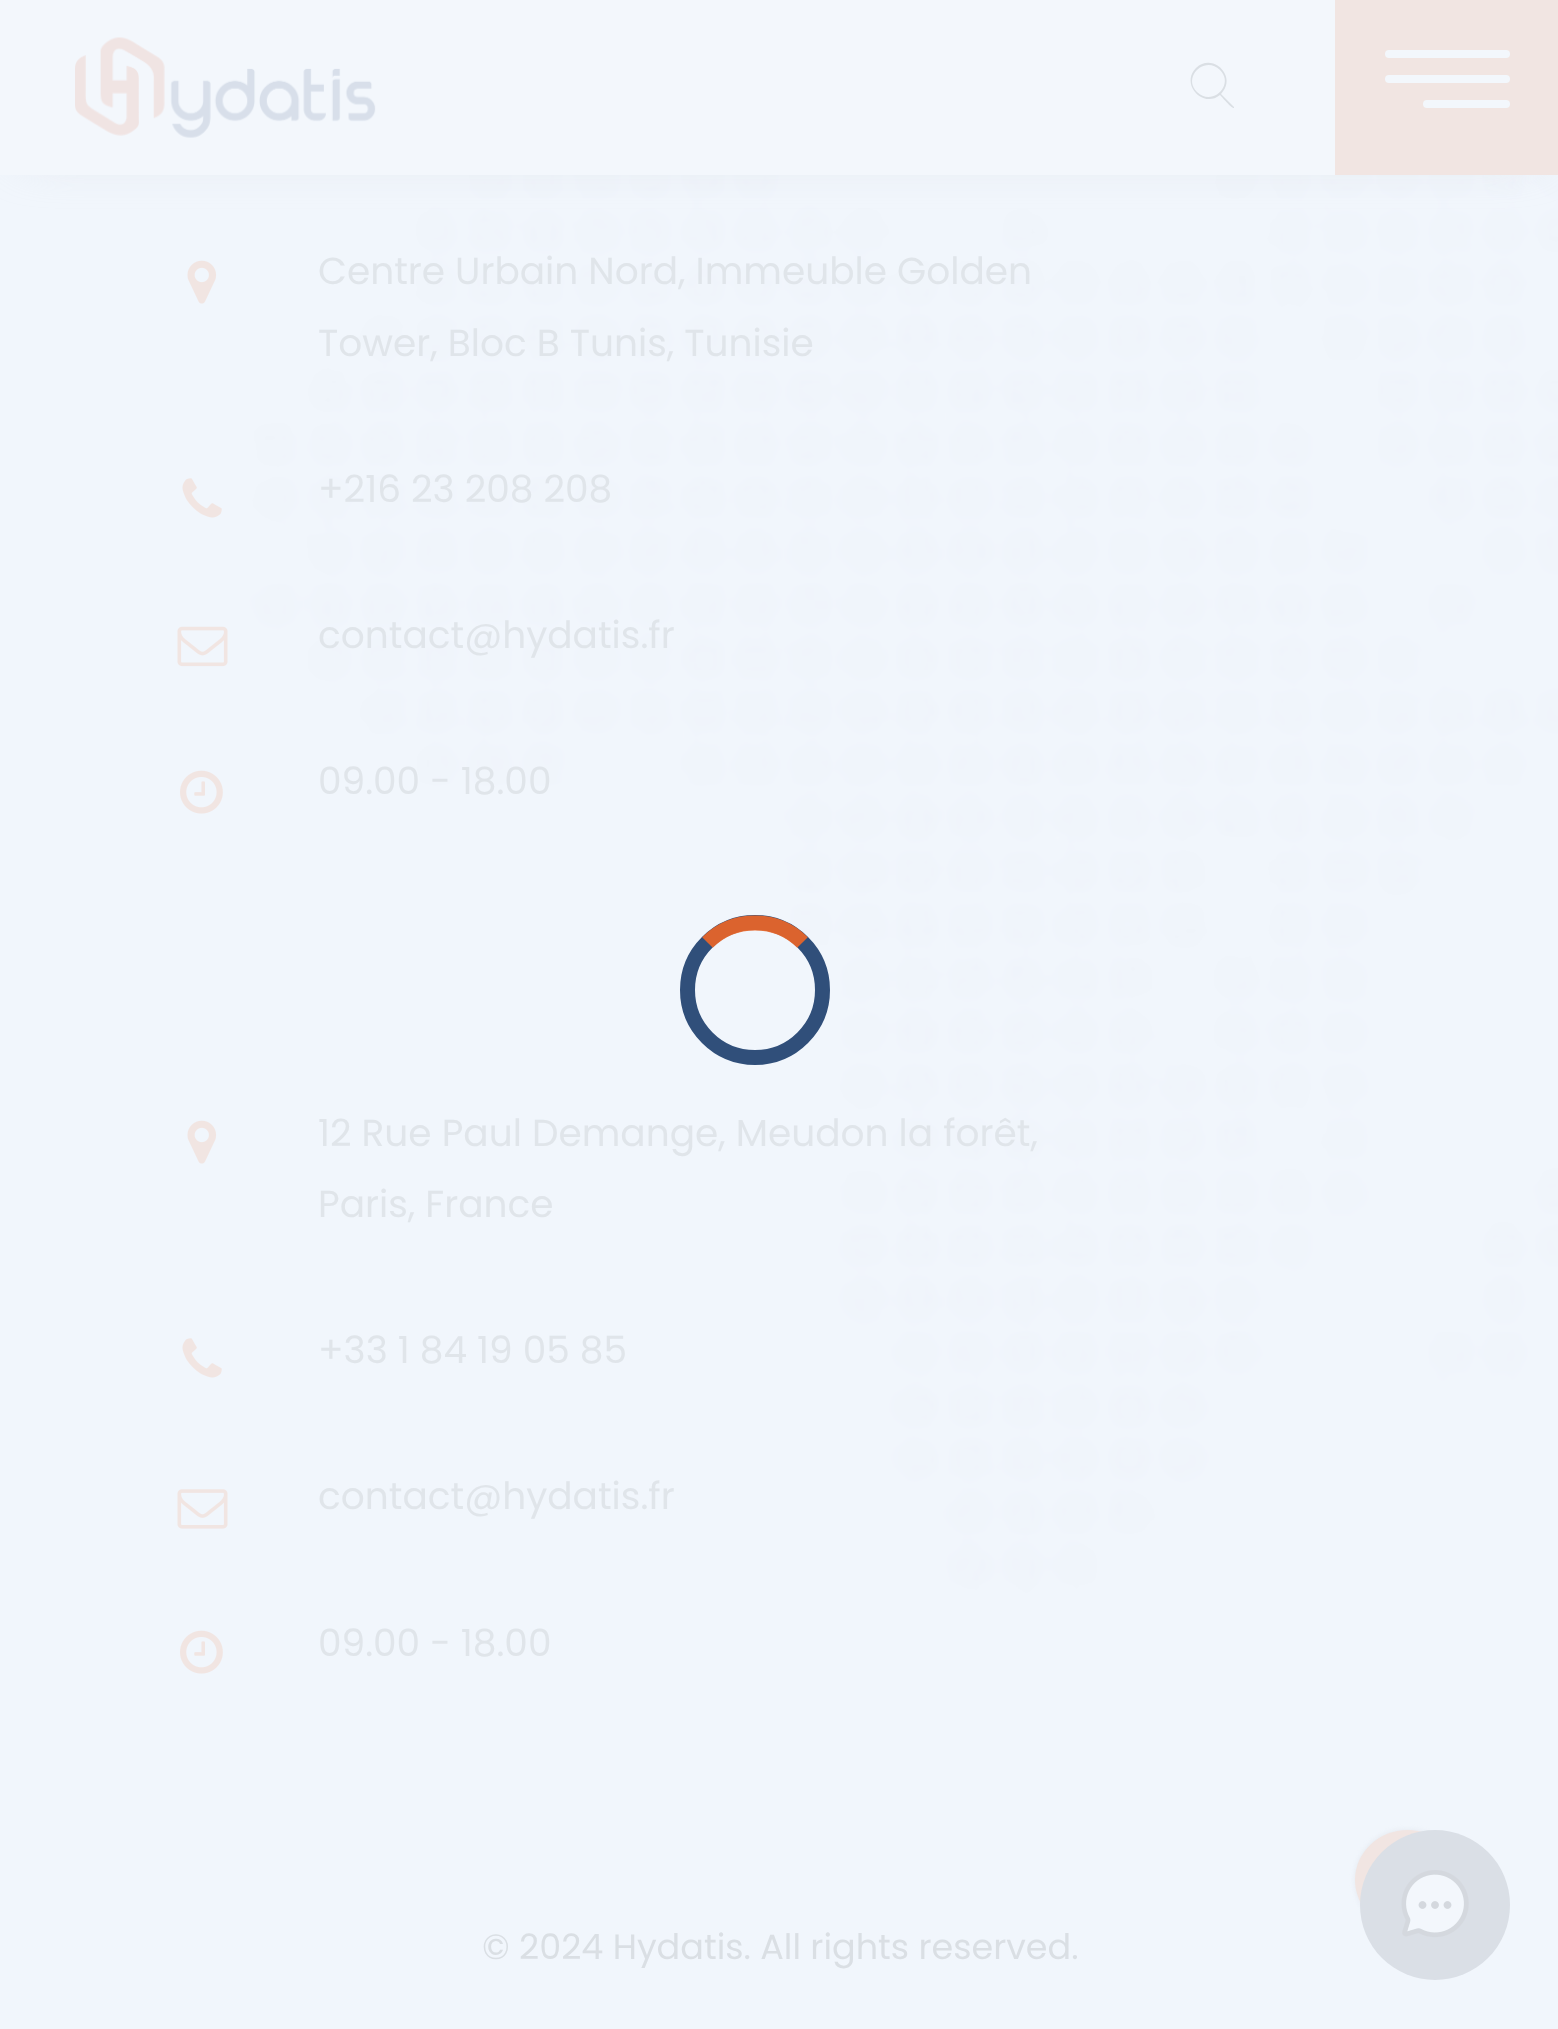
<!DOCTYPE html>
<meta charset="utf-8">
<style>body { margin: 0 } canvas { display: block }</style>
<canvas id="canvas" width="1558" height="2029"></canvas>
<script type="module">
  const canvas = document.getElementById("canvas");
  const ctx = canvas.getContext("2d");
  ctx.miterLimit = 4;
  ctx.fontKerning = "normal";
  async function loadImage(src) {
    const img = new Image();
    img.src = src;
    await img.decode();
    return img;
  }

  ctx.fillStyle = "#f1f6fc";
  ctx.fillRect(0, 0, 1558, 2029);
  ctx.drawImage(await loadImage("img2.png"), 249, 175, 1309, 1420);
  ctx.fillStyle = "rgba(212, 216, 222, 0.8)";
  ctx.filter = "blur(25px)";
  ctx.beginPath();
  ctx.rect(25, 25, 1510, 125);
  ctx.fill();
  ctx.filter = "none";
  ctx.fillStyle = "#f3f7fc";
  ctx.fillRect(0, 0, 1335, 175);
  ctx.drawImage(await loadImage("img1.png"), 75, 37, 301, 101);
  ctx.fillStyle = "#dadfe4";
  ctx.beginPath();
  ctx.moveTo(1234, 107);
  ctx.bezierCurveTo(1234, 107, 1234, 108, 1234, 108);
  ctx.bezierCurveTo(1232, 109, 1222, 97, 1220, 95);
  ctx.bezierCurveTo(1203, 109, 1180, 84, 1196, 68);
  ctx.bezierCurveTo(1213, 52, 1238, 77, 1221, 94);
  ctx.closePath();
  ctx.moveTo(1197, 92);
  ctx.bezierCurveTo(1212, 107, 1235, 85, 1220, 70);
  ctx.bezierCurveTo(1205, 55, 1182, 77, 1197, 92);
  ctx.closePath();
  ctx.fill();
  ctx.fillStyle = "#f1e5e2";
  ctx.fillRect(1335, 0, 223, 175);
  ctx.fillStyle = "#f3f7fc";
  ctx.beginPath();
  ctx.roundRect(1385, 50, 125, 8, 4);
  ctx.fill();
  ctx.beginPath();
  ctx.roundRect(1385, 75, 125, 8, 4);
  ctx.fill();
  ctx.beginPath();
  ctx.roundRect(1423, 100, 87, 8, 4);
  ctx.fill();
  ctx.drawImage(await loadImage("img3.png"), 187, 260, 30, 44);
  ctx.font = "37.5px Poppins";
  ctx.fillStyle = "#e0e5ea";
  ctx.fillText("Centre Urbain Nord, Immeuble Golden", 318, 284);
  ctx.fillText("Tower, Bloc B Tunis, Tunisie", 318, 356);
  ctx.drawImage(await loadImage("img4.png"), 182, 478, 40, 40);
  ctx.fillText("+216 23 208 208", 318, 502);
  ctx.drawImage(await loadImage("img5.png"), 177, 626, 51, 41);
  ctx.fillText("contact@hydatis.fr", 318, 648);
  ctx.drawImage(await loadImage("img6.png"), 180, 770, 43, 44);
  ctx.fillText("09.00 - 18.00", 318, 794);
  ctx.drawImage(await loadImage("img3.png"), 187, 1120, 30, 44);
  ctx.fillText("12 Rue Paul Demange, Meudon la forêt,", 318, 1146);
  ctx.fillText("Paris, France", 318, 1217);
  ctx.drawImage(await loadImage("img4.png"), 182, 1338, 40, 40);
  ctx.fillText("+33 1 84 19 05 85", 318, 1363);
  ctx.drawImage(await loadImage("img7.png"), 177, 1489, 51, 40);
  ctx.fillText("contact@hydatis.fr", 318, 1509);
  ctx.drawImage(await loadImage("img6.png"), 180, 1630, 43, 44);
  ctx.fillText("09.00 - 18.00", 318, 1656);
  ctx.font = "35px Poppins";
  ctx.fillStyle = "#dadfe4";
  ctx.fillText("© 2024 Hydatis. All rights reserved.", 482, 1959);
  ctx.beginPath();
  ctx.arc(755, 990, 67.5, 0, Math.PI * 2);
  ctx.strokeStyle = "#304f7a";
  ctx.lineWidth = 15;
  ctx.stroke();
  ctx.beginPath();
  ctx.moveTo(707.5, 942.5);
  ctx.bezierCurveTo(733.5, 916.5, 776.5, 916.5, 802.5, 942.5);
  ctx.strokeStyle = "rgba(242, 103, 35, 0.88)";
  ctx.stroke();
  ctx.fillStyle = "rgba(212, 216, 222, 0.4)";
  ctx.filter = "blur(2.5px)";
  ctx.beginPath();
  ctx.roundRect(1355, 1830, 105, 100, 50);
  ctx.fill();
  ctx.filter = "none";
  ctx.fillStyle = "#f1e5e2";
  ctx.beginPath();
  ctx.ellipse(1407.5, 1880, 52.5, 50, 0, 0, Math.PI * 2);
  ctx.fill();
  ctx.fillStyle = "#dadfe6";
  ctx.beginPath();
  ctx.arc(1435, 1905, 75, 0, Math.PI * 2);
  ctx.fill();
  ctx.drawImage(await loadImage("img8.png"), 1401, 1870, 68, 68);
</script>
